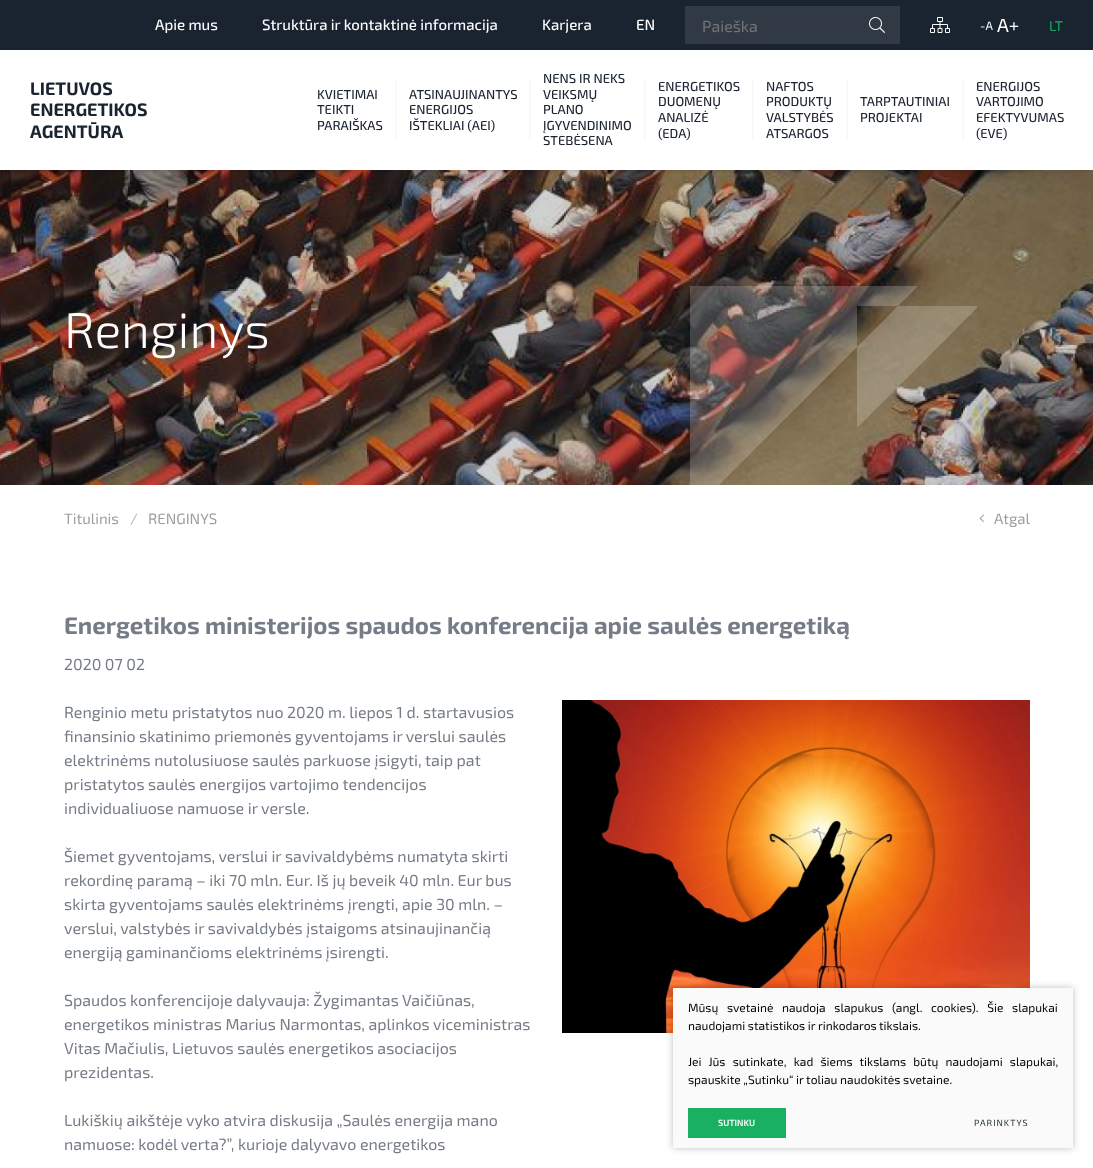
<!DOCTYPE html>
<meta charset="utf-8">
<style>body { margin: 0 } canvas { display: block }</style>
<canvas id="canvas" width="1093" height="1168"></canvas>
<script type="module">
  const canvas = document.getElementById("canvas");
  const ctx = canvas.getContext("2d");
  ctx.miterLimit = 4;
  ctx.fontKerning = "normal";
  async function loadImage(src) {
    const img = new Image();
    img.src = src;
    await img.decode();
    return img;
  }

  ctx.fillStyle = "#ffffff";
  ctx.fillRect(0, 0, 1093, 1168);
  ctx.drawImage(await loadImage("img3.png"), 0, 170, 1093, 315);
  ctx.save();
  ctx.beginPath();
  ctx.rect(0, 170, 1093, 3);
  ctx.clip();
  ctx.fillStyle = "rgba(0, 0, 0, 0.15)";
  ctx.filter = "blur(2.5px)";
  ctx.beginPath();
  ctx.rect(0, 0, 1093, 170);
  ctx.fill();
  ctx.filter = "none";
  ctx.restore();
  ctx.font = "bold 18px 'Exo 2'";
  ctx.fillStyle = "#1a2330";
  ctx.fillText("LIETUVOS", 30, 95);
  ctx.fillText("ENERGETIKOS", 30, 116);
  ctx.fillText("AGENTŪRA", 30, 138);
  ctx.fillRect(0, 0, 1093, 50);
  ctx.font = "500 15px 'Exo 2'";
  ctx.fillStyle = "#fdfdfd";
  ctx.fillText("Apie mus", 155, 30);
  ctx.fillText("Struktūra ir kontaktinė informacija", 262, 30);
  ctx.fillText("Karjera", 542, 30);
  ctx.fillText("EN", 636, 30);
  ctx.fillStyle = "#313945";
  ctx.fillRect(685, 6, 215, 38);
  ctx.font = "16px 'Exo 2'";
  ctx.fillStyle = "#757575";
  ctx.fillText("Paieška", 702, 32);
  ctx.drawImage(await loadImage("img1.png"), 869, 17, 16, 16);
  ctx.drawImage(await loadImage("img2.png"), 930, 17, 20, 16);
  ctx.font = "12px 'Exo 2'";
  ctx.fillStyle = "#fdfdfd";
  ctx.fillText("-A", 980, 30);
  ctx.font = "19px 'Exo 2'";
  ctx.fillText("A+", 997, 32);
  ctx.font = "14px 'Exo 2'";
  ctx.fillStyle = "#17af5f";
  ctx.fillText("LT", 1049, 31);
  ctx.font = "500 13px 'Exo 2'";
  ctx.fillStyle = "#1a2330";
  ctx.fillText("KVIETIMAI", 317, 99);
  ctx.fillText("TEIKTI", 317, 114);
  ctx.fillText("PARAIŠKAS", 317, 130);
  ctx.fillStyle = "#f9f9f9";
  ctx.fillRect(395, 80, 2, 60);
  ctx.fillStyle = "#1a2330";
  ctx.fillText("ATSINAUJINANTYS", 409, 99);
  ctx.fillText("ENERGIJOS", 409, 114);
  ctx.fillText("IŠTEKLIAI (AEI)", 409, 130);
  ctx.fillText("NENS IR NEKS", 543, 83);
  ctx.fillStyle = "#f9f9f9";
  ctx.fillRect(529, 80, 2, 60);
  ctx.fillStyle = "#1a2330";
  ctx.fillText("VEIKSMŲ", 543, 99);
  ctx.fillText("PLANO", 543, 114);
  ctx.fillText("ĮGYVENDINIMO", 543, 130);
  ctx.fillText("STEBĖSENA", 543, 145);
  ctx.fillStyle = "#f9f9f9";
  ctx.fillRect(644, 80, 2, 60);
  ctx.fillStyle = "#1a2330";
  ctx.fillText("ENERGETIKOS", 658, 91);
  ctx.fillText("DUOMENŲ", 658, 106);
  ctx.fillText("ANALIZĖ", 658, 122);
  ctx.fillText("(EDA)", 658, 138);
  ctx.fillStyle = "#f9f9f9";
  ctx.fillRect(752, 80, 2, 60);
  ctx.fillStyle = "#1a2330";
  ctx.fillText("NAFTOS", 766, 91);
  ctx.fillText("PRODUKTŲ", 766, 106);
  ctx.fillText("VALSTYBĖS", 766, 122);
  ctx.fillText("ATSARGOS", 766, 138);
  ctx.fillStyle = "#f9f9f9";
  ctx.fillRect(846, 80, 2, 60);
  ctx.fillStyle = "#1a2330";
  ctx.fillText("TARPTAUTINIAI", 860, 106);
  ctx.fillText("PROJEKTAI", 860, 122);
  ctx.fillStyle = "#f9f9f9";
  ctx.fillRect(962, 80, 2, 60);
  ctx.fillStyle = "#1a2330";
  ctx.fillText("ENERGIJOS", 976, 91);
  ctx.fillText("VARTOJIMO", 976, 106);
  ctx.fillText("EFEKTYVUMAS", 976, 122);
  ctx.fillText("(EVE)", 976, 138);
  ctx.font = "300 50px 'Exo 2'";
  ctx.fillStyle = "#fdfdfd";
  ctx.fillText("Renginys", 64, 348);
  ctx.save();
  ctx.beginPath();
  ctx.rect(377, 286, 600, 199);
  ctx.clip();
  ctx.fillStyle = "rgba(255, 255, 255, 0.2)";
  ctx.beginPath();
  ctx.moveTo(690, 286);
  ctx.lineTo(918, 286);
  ctx.lineTo(690, 514);
  ctx.closePath();
  ctx.moveTo(857, 306);
  ctx.lineTo(979, 306);
  ctx.lineTo(857, 428);
  ctx.closePath();
  ctx.moveTo(416, 704);
  ctx.lineTo(377, 743);
  ctx.lineTo(377, 666);
  ctx.closePath();
  ctx.moveTo(420, 689);
  ctx.lineTo(401, 708);
  ctx.lineTo(401, 671);
  ctx.closePath();
  ctx.fill("evenodd");
  ctx.restore();
  ctx.font = "15px 'Exo 2'";
  ctx.fillStyle = "#9e9e9e";
  ctx.fillText("Titulinis", 64, 524);
  ctx.font = "300 15px 'Exo 2'";
  ctx.fillText("/", 130, 524);
  ctx.font = "15px 'Exo 2'";
  ctx.fillText("RENGINYS", 148, 524);
  ctx.drawImage(await loadImage("img4.png"), 979, 514, 5, 8);
  ctx.fillText("Atgal", 994, 524);
  ctx.font = "bold 24px 'Exo 2'";
  ctx.fillStyle = "#757c87";
  ctx.fillText("Energetikos ministerijos spaudos konferencija apie saulės energetiką", 64, 634);
  ctx.font = "16px 'Exo 2'";
  ctx.fillText("2020 07 02", 64, 670);
  ctx.fillText("Renginio metu pristatytos nuo 2020 m. liepos 1 d. startavusios", 64, 718);
  ctx.fillText("finansinio skatinimo priemonės gyventojams ir verslui saulės", 64, 742);
  ctx.fillText("elektrinėms nutolusiuose saulės parkuose įsigyti, taip pat", 64, 766);
  ctx.fillText("pristatytos saulės energijos vartojimo tendencijos", 64, 790);
  ctx.fillText("individualiuose namuose ir versle.", 64, 814);
  ctx.fillText("Šiemet gyventojams, verslui ir savivaldybėms numatyta skirti", 64, 862);
  ctx.fillText("rekordinę paramą – iki 70 mln. Eur. Iš jų beveik 40 mln. Eur bus", 64, 886);
  ctx.fillText("skirta gyventojams saulės elektrinėms įrengti, apie 30 mln. –", 64, 910);
  ctx.fillText("verslui, valstybės ir savivaldybės įstaigoms atsinaujinančią", 64, 934);
  ctx.fillText("energiją gaminančioms elektrinėms įsirengti.", 64, 958);
  ctx.fillText("Spaudos konferencijoje dalyvauja: Žygimantas Vaičiūnas,", 64, 1006);
  ctx.fillText("energetikos ministras Marius Narmontas, aplinkos viceministras", 64, 1030);
  ctx.fillText("Vitas Mačiulis, Lietuvos saulės energetikos asociacijos", 64, 1054);
  ctx.fillText("prezidentas.", 64, 1078);
  ctx.fillText("Lukiškių aikštėje vyko atvira diskusija „Saulės energija mano", 64, 1126);
  ctx.fillText("namuose: kodėl verta?”, kurioje dalyvavo energetikos", 64, 1150);
  ctx.drawImage(await loadImage("img5.png"), 562, 700, 468, 333);
  ctx.fillStyle = "rgba(0, 0, 0, 0.25)";
  ctx.filter = "blur(3.5px)";
  ctx.beginPath();
  ctx.rect(673, 988, 400, 160);
  ctx.fill();
  ctx.filter = "none";
  ctx.fillStyle = "#fafafa";
  ctx.fillRect(673, 988, 400, 160);
  ctx.wordSpacing = "6px";
  ctx.font = "12px 'Exo 2'";
  ctx.fillStyle = "#000000";
  ctx.fillText("Mūsų svetainė naudoja slapukus (angl. cookies). Šie slapukai", 688, 1012);
  ctx.wordSpacing = "0px";
  ctx.fillText("naudojami statistikos ir rinkodaros tikslais.", 688, 1030);
  ctx.wordSpacing = "4.5px";
  ctx.fillText("Jei Jūs sutinkate, kad šiems tikslams būtų naudojami slapukai,", 688, 1066);
  ctx.wordSpacing = "0px";
  ctx.fillText("spauskite „Sutinku“ ir toliau naudokitės svetaine.", 688, 1084);
  ctx.fillStyle = "#19b161";
  ctx.fillRect(688, 1108, 98, 30);
  ctx.font = "600 9px 'Exo 2'";
  ctx.fillStyle = "#fdfdfd";
  ctx.fillText("SUTINKU", 718, 1126);
  ctx.letterSpacing = "1px";
  ctx.font = "9px 'Exo 2'";
  ctx.fillStyle = "#263238";
  ctx.fillText("PARINKTYS", 974, 1126);
</script>
